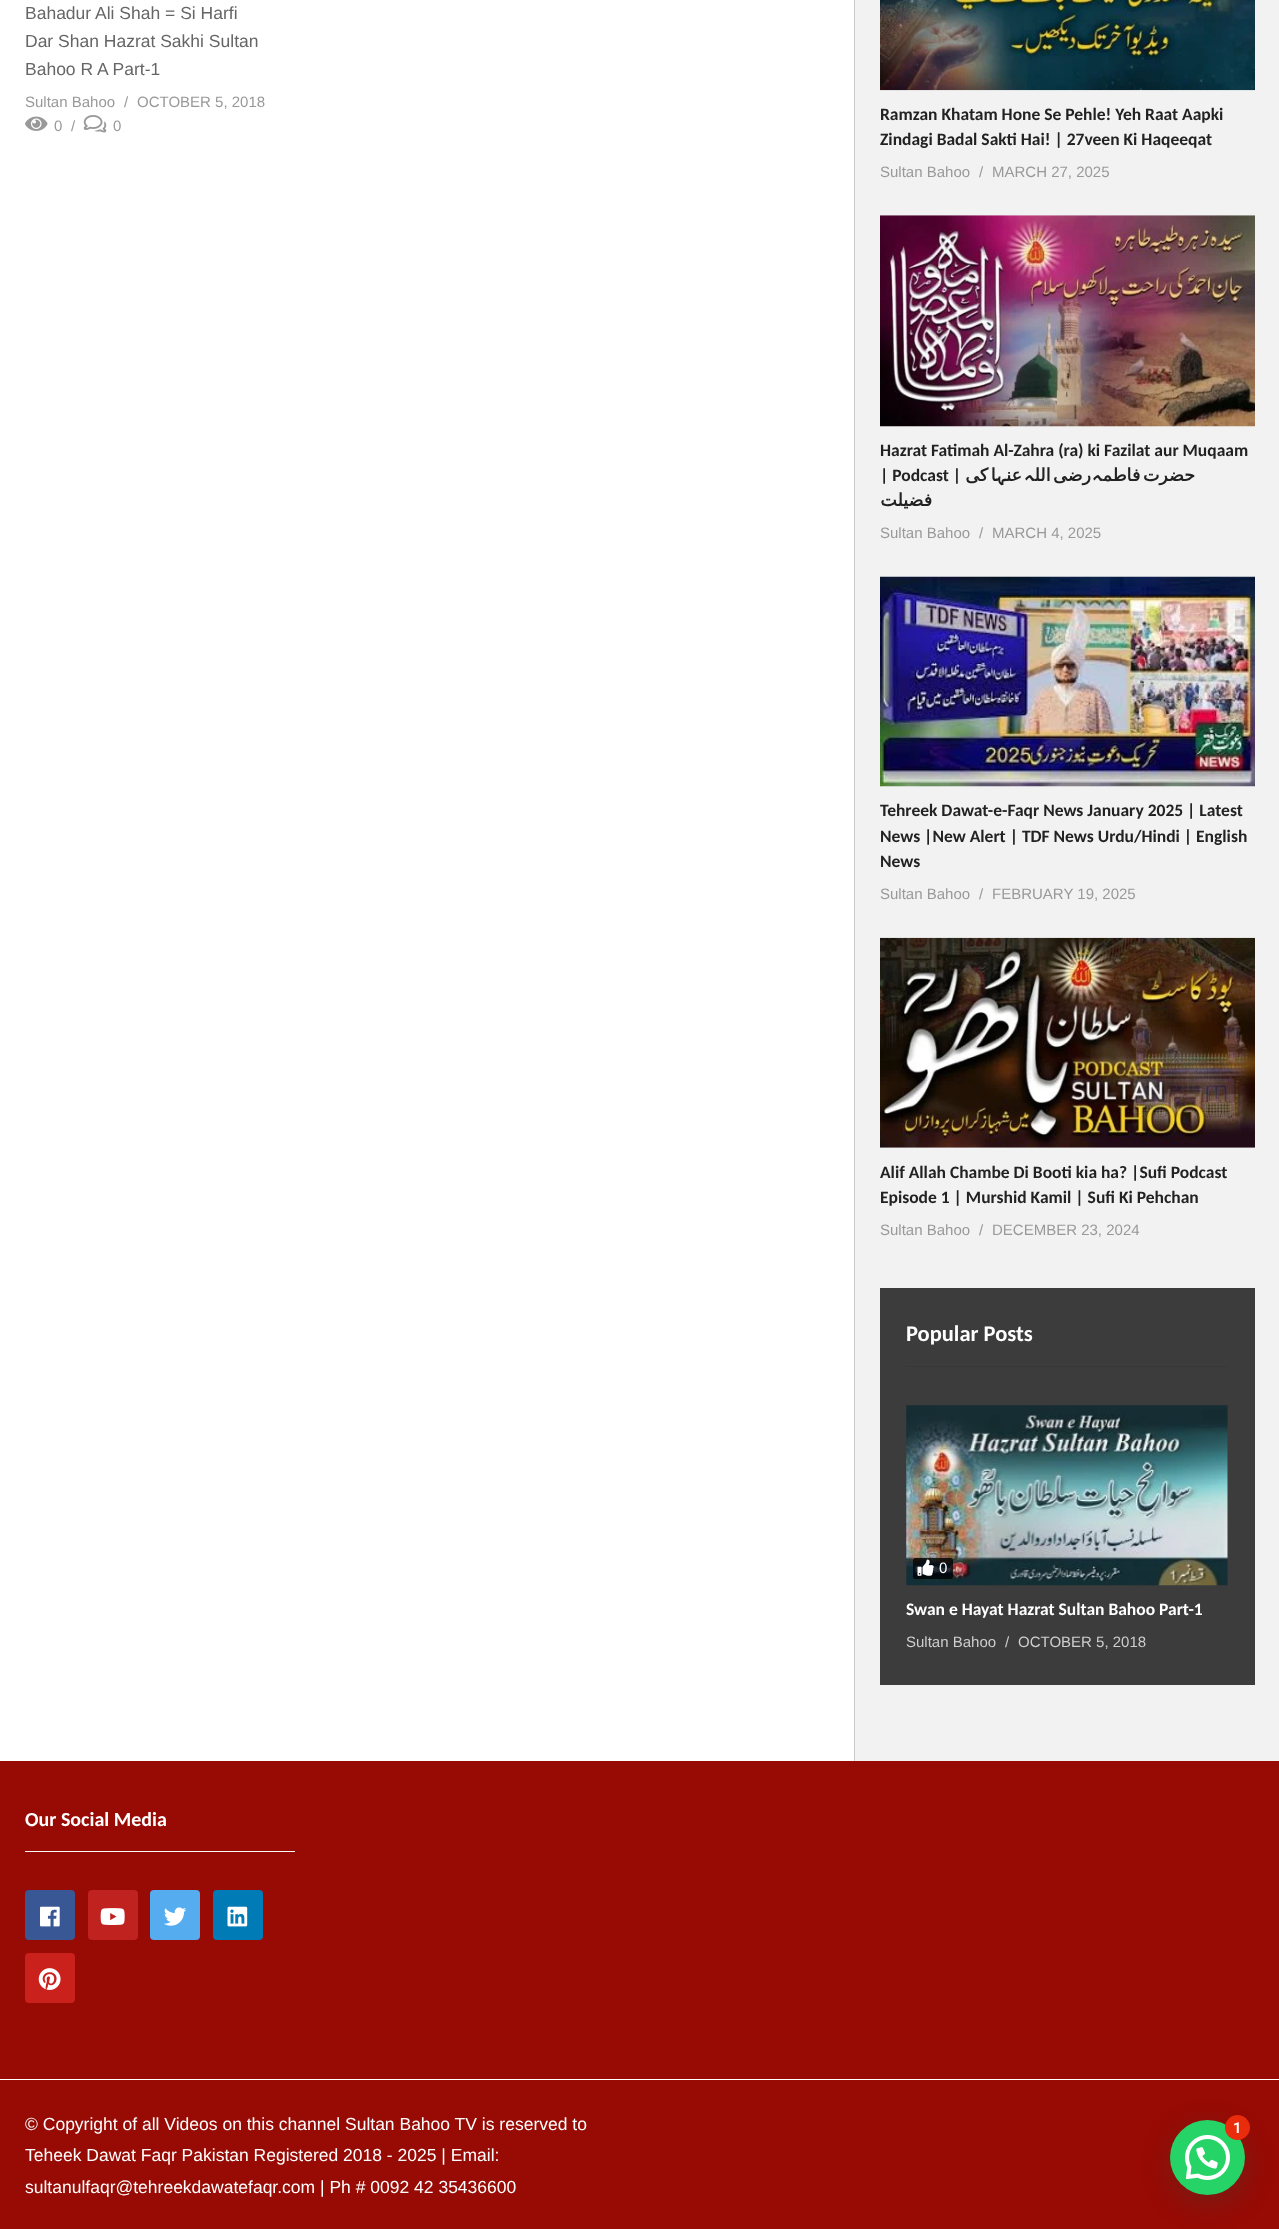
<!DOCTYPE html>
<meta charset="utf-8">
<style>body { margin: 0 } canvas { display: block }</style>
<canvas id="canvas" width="1279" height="2229"></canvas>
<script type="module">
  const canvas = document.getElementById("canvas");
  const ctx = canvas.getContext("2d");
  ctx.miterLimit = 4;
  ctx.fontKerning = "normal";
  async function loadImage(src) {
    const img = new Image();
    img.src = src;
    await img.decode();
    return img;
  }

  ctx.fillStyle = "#ffffff";
  ctx.fillRect(0, 0, 1279, 2229);
  ctx.font = "17.5px Liberation Sans";
  ctx.fillStyle = "#666666";
  ctx.fillText("Bahadur Ali Shah = Si Harfi", 25, 19);
  ctx.fillText("Dar Shan Hazrat Sakhi Sultan", 25, 47);
  ctx.fillText("Bahoo R A Part-1", 25, 75);
  ctx.font = "15px Liberation Sans";
  ctx.fillStyle = "#999999";
  ctx.fillText("Sultan Bahoo", 25, 107);
  ctx.fillText("/", 124, 107);
  ctx.fillText("OCTOBER 5, 2018", 137, 107);
  ctx.drawImage(await loadImage("img1.png"), 25, 116, 23, 15);
  ctx.fillText("0", 54, 131);
  ctx.fillText("/", 71, 131);
  ctx.drawImage(await loadImage("img2.png"), 83, 115, 24, 18);
  ctx.fillText("0", 113, 131);
  ctx.fillStyle = "#cccccc";
  ctx.fillRect(854, 0, 1, 1761);
  ctx.fillStyle = "#f2f2f2";
  ctx.fillRect(855, 0, 424, 1761);
  ctx.drawImage(await loadImage("img3.png"), 880, 0, 375, 91);
  ctx.font = "bold 17.5px Carlito";
  ctx.fillStyle = "#222222";
  ctx.fillText("Ramzan Khatam Hone Se Pehle! Yeh Raat Aapki", 880, 120);
  ctx.fillText("Zindagi Badal Sakti Hai! | 27veen Ki Haqeeqat", 880, 145);
  ctx.font = "15px Liberation Sans";
  ctx.fillStyle = "#999999";
  ctx.fillText("Sultan Bahoo", 880, 177);
  ctx.fillText("/", 979, 177);
  ctx.fillText("MARCH 27, 2025", 992, 177);
  ctx.drawImage(await loadImage("img4.png"), 880, 215, 375, 212);
  ctx.font = "bold 17.5px Carlito";
  ctx.fillStyle = "#222222";
  ctx.fillText("Hazrat Fatimah Al-Zahra (ra) ki Fazilat aur Muqaam", 880, 456);
  ctx.fillText("| Podcast |", 880, 481);
  ctx.wordSpacing = "-3px";
  ctx.direction = "rtl";
  ctx.font = "bold 17.5px DejaVu Sans";
  ctx.fillText("‍ا کی", 996, 481);
  ctx.wordSpacing = "0px";
  ctx.font = "bold 17.5px Cascadia Code";
  ctx.fillText("‍ہ‍", 1006, 481);
  ctx.font = "bold 17.5px DejaVu Sans";
  ctx.fillText("عن‍", 1022, 481);
  ctx.font = "bold 17.5px Cascadia Code";
  ctx.fillText("‍ہ", 1034, 481);
  ctx.wordSpacing = "-3px";
  ctx.font = "bold 17.5px DejaVu Sans";
  ctx.fillText("رضی الل‍", 1091, 481);
  ctx.wordSpacing = "0px";
  ctx.font = "bold 17.5px Cascadia Code";
  ctx.fillText("‍ہ", 1102, 481);
  ctx.wordSpacing = "-3px";
  ctx.font = "bold 17.5px DejaVu Sans";
  ctx.fillText("حضرت فاطم‍", 1195, 481);
  ctx.wordSpacing = "0px";
  ctx.fillText("فضیلت", 932, 506);
  ctx.direction = "ltr";
  ctx.font = "15px Liberation Sans";
  ctx.fillStyle = "#999999";
  ctx.fillText("Sultan Bahoo", 880, 538);
  ctx.fillText("/", 979, 538);
  ctx.fillText("MARCH 4, 2025", 992, 538);
  ctx.drawImage(await loadImage("img5.png"), 880, 576, 375, 211);
  ctx.font = "bold 17.5px Carlito";
  ctx.fillStyle = "#222222";
  ctx.fillText("Tehreek Dawat-e-Faqr News January 2025 | Latest", 880, 816);
  ctx.fillText("News |New Alert | TDF News Urdu/Hindi | English", 880, 842);
  ctx.fillText("News", 880, 867);
  ctx.font = "15px Liberation Sans";
  ctx.fillStyle = "#999999";
  ctx.fillText("Sultan Bahoo", 880, 899);
  ctx.fillText("/", 979, 899);
  ctx.fillText("FEBRUARY 19, 2025", 992, 899);
  ctx.drawImage(await loadImage("img6.png"), 880, 937, 375, 211);
  ctx.font = "bold 17.5px Carlito";
  ctx.fillStyle = "#222222";
  ctx.fillText("Alif Allah Chambe Di Booti kia ha? |Sufi Podcast", 880, 1178);
  ctx.fillText("Episode 1 | Murshid Kamil | Sufi Ki Pehchan", 880, 1203);
  ctx.font = "15px Liberation Sans";
  ctx.fillStyle = "#999999";
  ctx.fillText("Sultan Bahoo", 880, 1235);
  ctx.fillText("/", 979, 1235);
  ctx.fillText("DECEMBER 23, 2024", 992, 1235);
  ctx.fillStyle = "#3c3c3c";
  ctx.fillRect(880, 1288, 375, 397);
  ctx.fillStyle = "#383838";
  ctx.fillRect(906, 1366, 322, 1);
  ctx.font = "bold 22.5px Carlito";
  ctx.fillStyle = "#ffffff";
  ctx.fillText("Popular Posts", 906, 1341);
  ctx.drawImage(await loadImage("img7.png"), 906, 1405, 322, 181);
  ctx.fillStyle = "rgba(0, 0, 0, 0.75)";
  ctx.beginPath();
  ctx.roundRect(913, 1558, 40, 21, 2.5);
  ctx.fill();
  ctx.drawImage(await loadImage("img8.png"), 917, 1559, 17, 17);
  ctx.font = "15px Liberation Sans";
  ctx.fillStyle = "#ffffff";
  ctx.fillText("0", 939, 1573);
  ctx.font = "bold 17.5px Carlito";
  ctx.fillText("Swan e Hayat Hazrat Sultan Bahoo Part-1", 906, 1615);
  ctx.font = "15px Liberation Sans";
  ctx.fillStyle = "#cecece";
  ctx.fillText("Sultan Bahoo", 906, 1647);
  ctx.fillText("/", 1005, 1647);
  ctx.fillText("OCTOBER 5, 2018", 1018, 1647);
  ctx.fillStyle = "#980a04";
  ctx.fillRect(0, 1761, 1279, 468);
  ctx.fillStyle = "#f9f9f9";
  ctx.fillRect(25, 1851, 270, 1);
  ctx.font = "bold 20px Carlito";
  ctx.fillStyle = "#ffffff";
  ctx.fillText("Our Social Media", 25, 1826);
  ctx.fillStyle = "#3a5795";
  ctx.beginPath();
  ctx.roundRect(25, 1890, 50, 50, 4);
  ctx.fill();
  ctx.drawImage(await loadImage("img9.png"), 40, 1906, 20, 21);
  ctx.fillStyle = "#bf221f";
  ctx.beginPath();
  ctx.roundRect(88, 1890, 50, 50, 4);
  ctx.fill();
  ctx.drawImage(await loadImage("img10.png"), 100, 1908, 25, 17);
  ctx.fillStyle = "#55acee";
  ctx.beginPath();
  ctx.roundRect(150, 1890, 50, 50, 4);
  ctx.fill();
  ctx.drawImage(await loadImage("img11.png"), 164, 1907, 23, 19);
  ctx.fillStyle = "#007bb6";
  ctx.beginPath();
  ctx.roundRect(213, 1890, 50, 50, 4);
  ctx.fill();
  ctx.drawImage(await loadImage("img12.png"), 227, 1906, 21, 21);
  ctx.fillStyle = "#cb211d";
  ctx.beginPath();
  ctx.roundRect(25, 1953, 50, 50, 4);
  ctx.fill();
  ctx.drawImage(await loadImage("img13.png"), 38, 1968, 23, 22);
  ctx.fillStyle = "#ffffff";
  ctx.fillRect(0, 2079, 1279, 1);
  ctx.font = "17.5px Liberation Sans";
  ctx.fillText("© Copyright of all Videos on this channel Sultan Bahoo TV is reserved to", 25, 2130);
  ctx.fillText("Teheek Dawat Faqr Pakistan Registered 2018 - 2025 | Email:", 25, 2161);
  ctx.fillText("sultanulfaqr@tehreekdawatefaqr.com | Ph # 0092 42 35436600", 25, 2193);
  ctx.fillStyle = "rgba(7, 94, 84, 0.24)";
  ctx.filter = "blur(15px)";
  ctx.beginPath();
  ctx.roundRect(1171, 2128, 75, 75, 37.5);
  ctx.fill();
  ctx.filter = "none";
  ctx.fillStyle = "#25d366";
  ctx.beginPath();
  ctx.arc(1207.5, 2157.5, 37.5, 0, Math.PI * 2);
  ctx.fill();
  ctx.drawImage(await loadImage("img14.png"), 1185, 2135, 45, 45);
  ctx.fillStyle = "#e82c0c";
  ctx.beginPath();
  ctx.arc(1237.5, 2127.5, 12.5, 0, Math.PI * 2);
  ctx.fill();
  ctx.font = "600 15px Roboto";
  ctx.fillStyle = "#ffffff";
  ctx.fillText("1", 1233, 2133);
</script>
